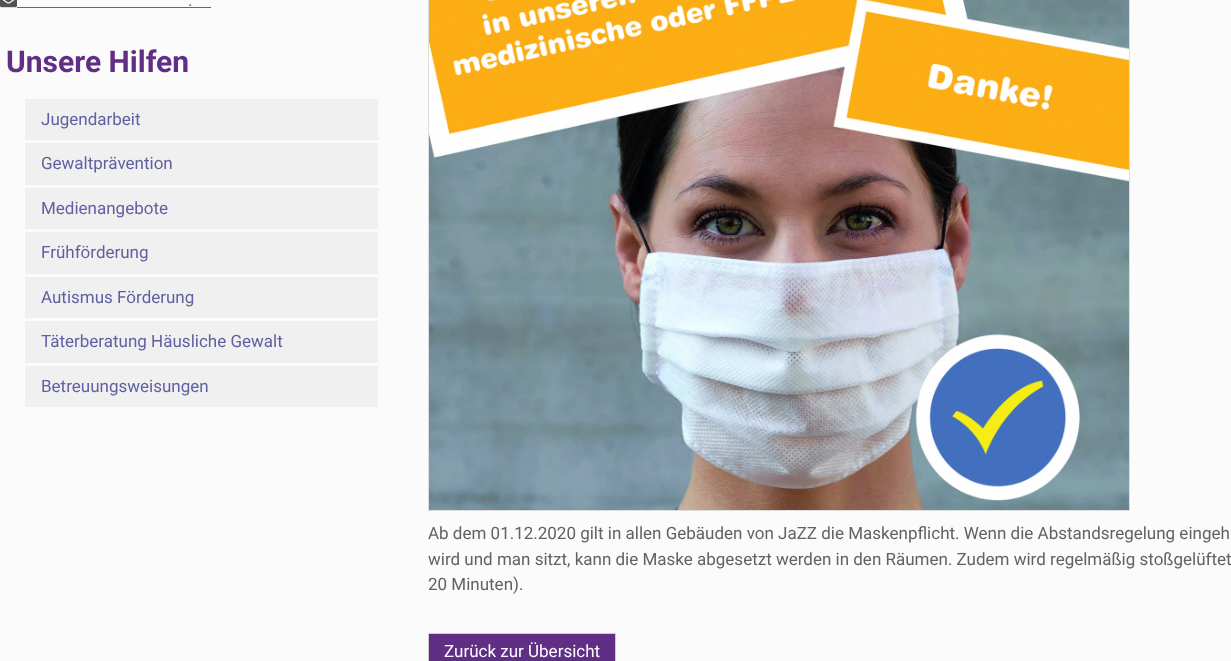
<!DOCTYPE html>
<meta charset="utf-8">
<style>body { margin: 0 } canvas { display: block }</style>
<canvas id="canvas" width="1231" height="661"></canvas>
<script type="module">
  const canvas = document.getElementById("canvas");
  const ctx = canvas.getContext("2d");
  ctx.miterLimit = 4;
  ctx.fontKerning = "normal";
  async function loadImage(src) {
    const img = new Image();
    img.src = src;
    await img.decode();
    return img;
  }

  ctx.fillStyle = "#fbfbfb";
  ctx.fillRect(0, 0, 1231, 661);
  ctx.drawImage(await loadImage("img1.png"), 0, 0, 17, 8);
  ctx.font = "17px Roboto";
  ctx.fillStyle = "#605fa1";
  ctx.fillText(".", 188, 6);
  ctx.fillRect(17, 7, 194, 1);
  ctx.font = "bold 30px Roboto";
  ctx.fillStyle = "#602e85";
  ctx.fillText("Unsere Hilfen", 6, 72);
  ctx.fillStyle = "#f0f0f0";
  ctx.fillRect(25, 99, 353, 41);
  ctx.font = "17px Roboto";
  ctx.fillStyle = "#605fa1";
  ctx.fillText("Jugendarbeit", 41, 125);
  ctx.fillStyle = "#f0f0f0";
  ctx.fillRect(25, 143, 353, 42);
  ctx.fillStyle = "#605fa1";
  ctx.fillText("Gewaltprävention", 41, 169);
  ctx.fillStyle = "#f0f0f0";
  ctx.fillRect(25, 188, 353, 41);
  ctx.fillStyle = "#605fa1";
  ctx.fillText("Medienangebote", 41, 214);
  ctx.fillStyle = "#f0f0f0";
  ctx.fillRect(25, 232, 353, 42);
  ctx.fillStyle = "#605fa1";
  ctx.fillText("Frühförderung", 41, 258);
  ctx.fillStyle = "#f0f0f0";
  ctx.fillRect(25, 277, 353, 41);
  ctx.fillStyle = "#605fa1";
  ctx.fillText("Autismus Förderung", 41, 303);
  ctx.fillStyle = "#f0f0f0";
  ctx.fillRect(25, 321, 353, 42);
  ctx.fillStyle = "#605fa1";
  ctx.fillText("Täterberatung Häusliche Gewalt", 41, 347);
  ctx.fillStyle = "#f0f0f0";
  ctx.fillRect(25, 366, 353, 41);
  ctx.fillStyle = "#605fa1";
  ctx.fillText("Betreuungsweisungen", 41, 392);
  ctx.strokeStyle = "#dddddd";
  ctx.strokeRect(428.5, -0.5, 701, 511);
  ctx.drawImage(await loadImage("img2.png"), 429, 0, 700, 510);
  ctx.fillStyle = "#626262";
  ctx.fillText("Ab dem 01.12.2020 gilt in allen Gebäuden von JaZZ die Maskenpflicht. Wenn die Abstandsregelung eingeh", 428, 539);
  ctx.fillText("wird und man sitzt, kann die Maske abgesetzt werden in den Räumen. Zudem wird regelmäßig stoßgelüftet", 428, 565);
  ctx.fillText("20 Minuten).", 428, 590);
  ctx.fillStyle = "#602e85";
  ctx.beginPath();
  ctx.rect(428.5, 633.5, 187, 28);
  ctx.fill();
  ctx.strokeStyle = "#cdcdcf";
  ctx.stroke();
  ctx.fillStyle = "#ffffff";
  ctx.fillText("Zurück zur Übersicht", 444, 657);
</script>
